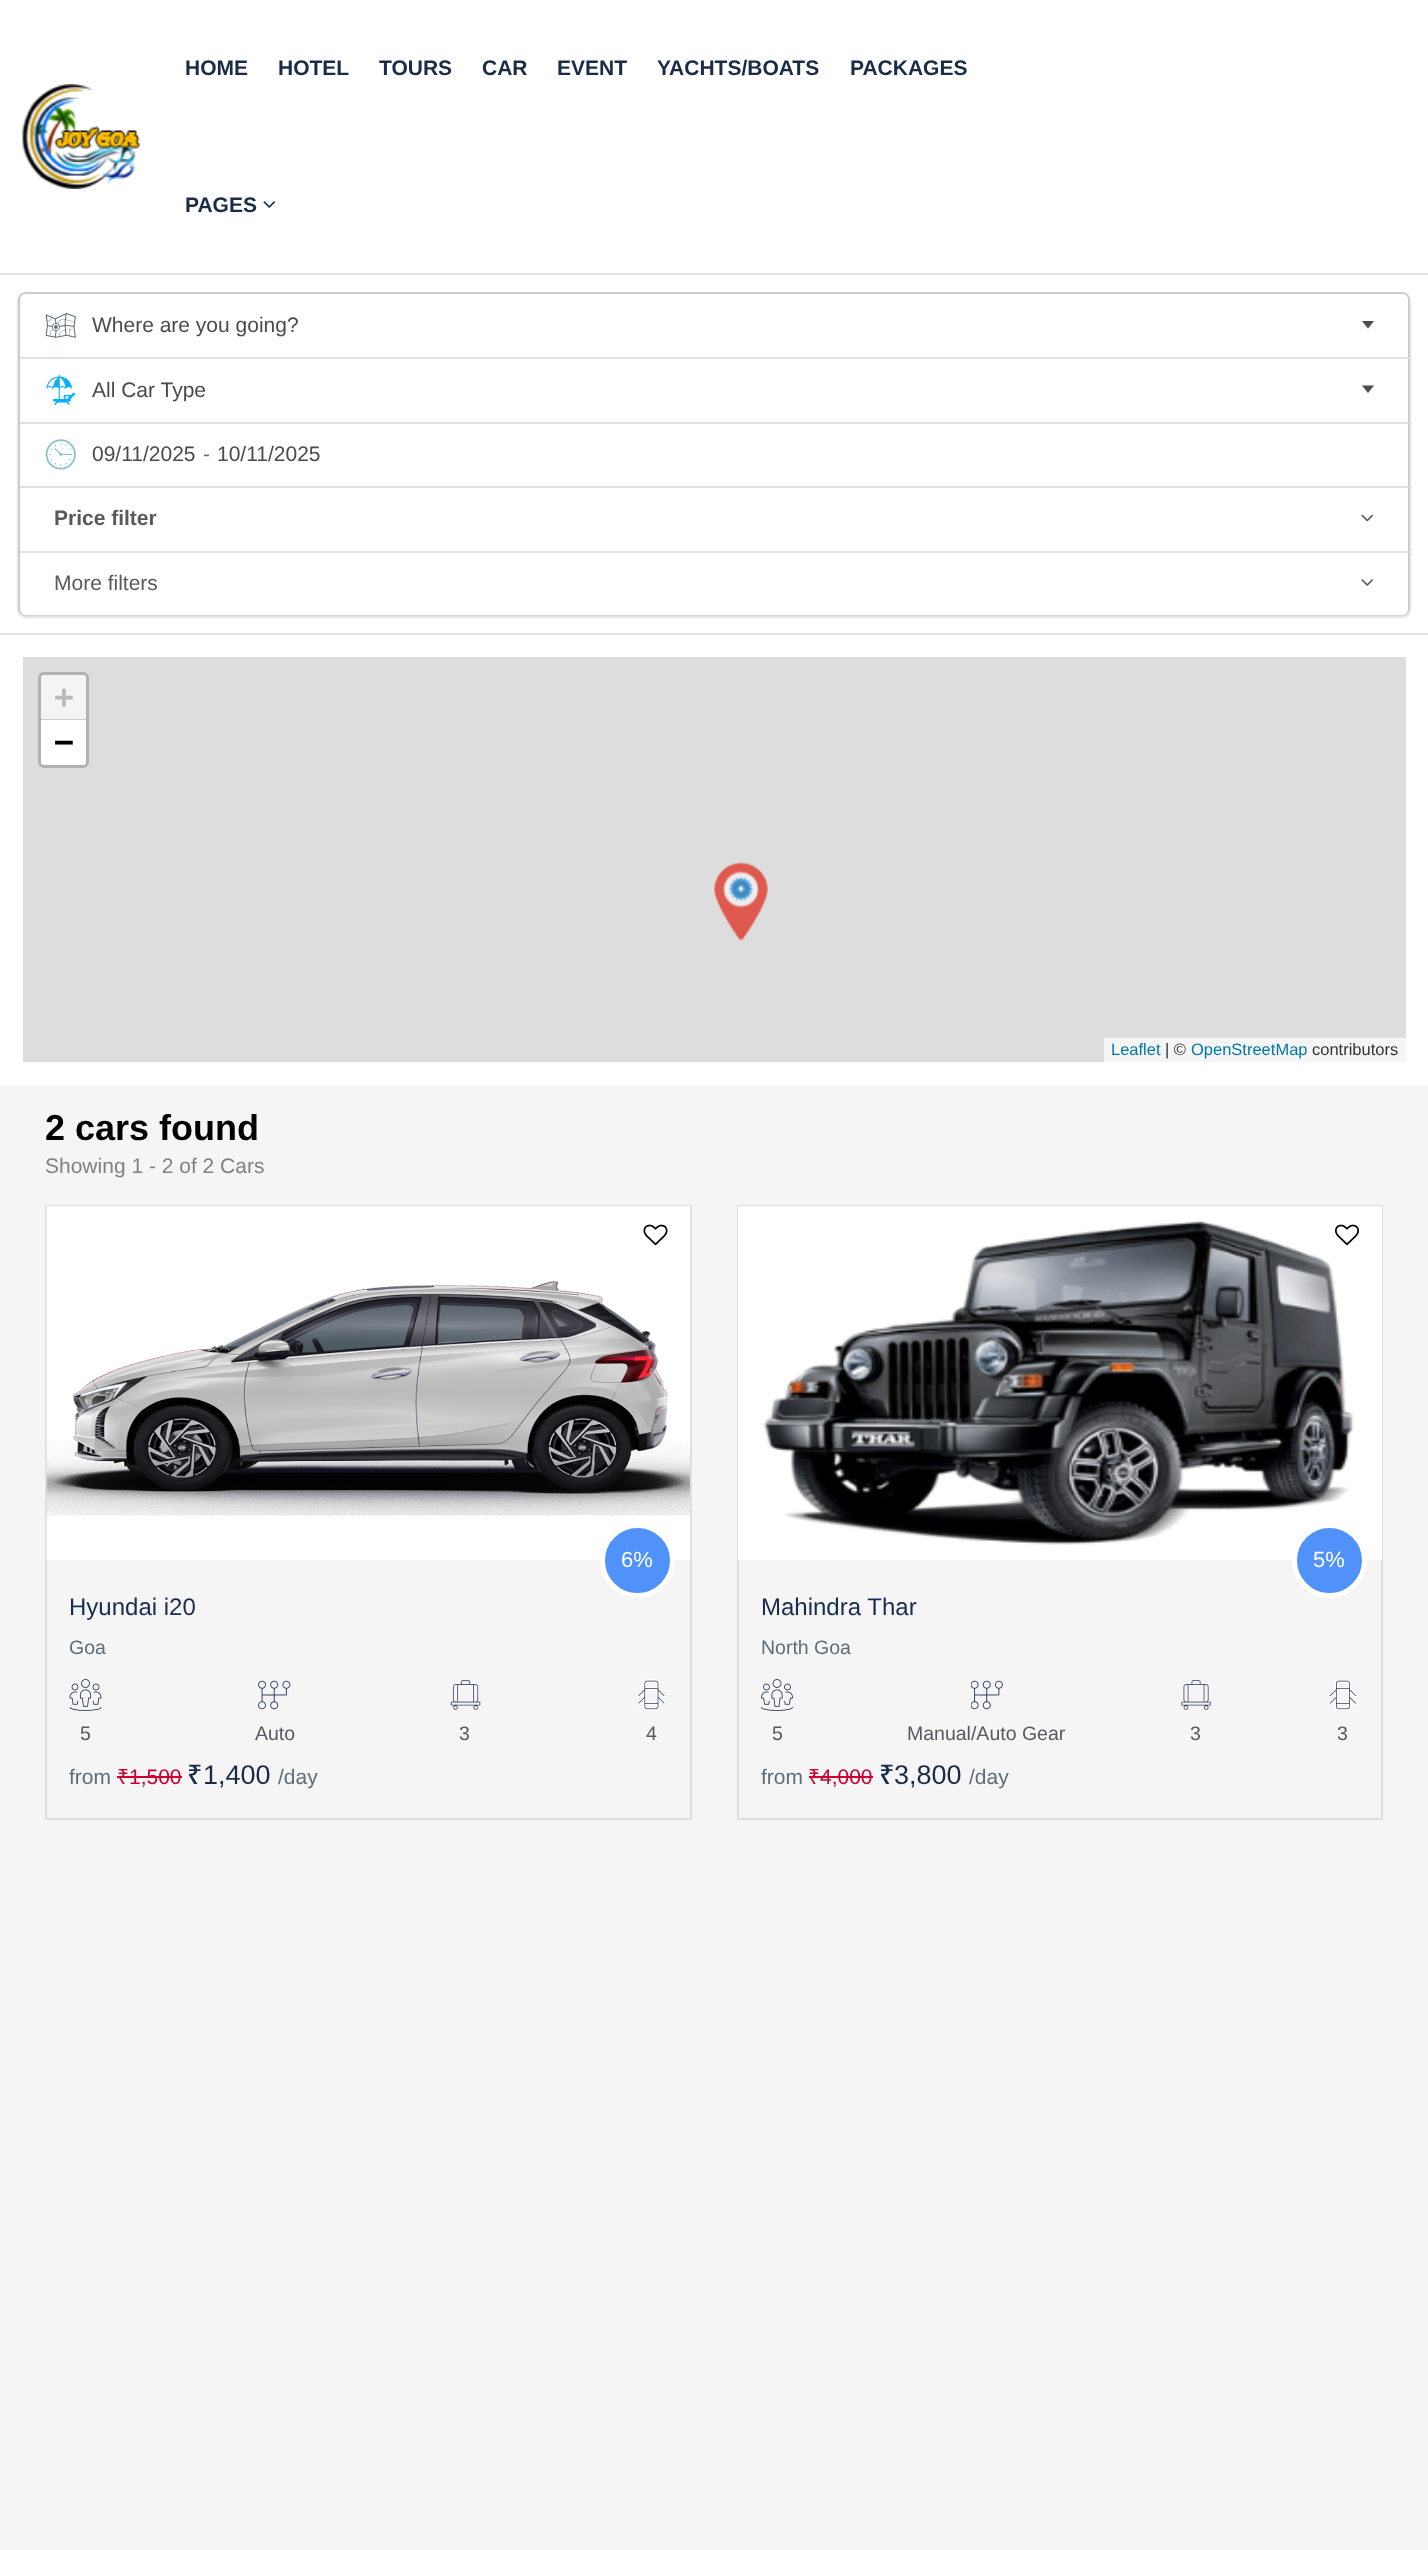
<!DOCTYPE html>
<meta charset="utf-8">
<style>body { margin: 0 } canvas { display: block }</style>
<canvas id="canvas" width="1428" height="2550"></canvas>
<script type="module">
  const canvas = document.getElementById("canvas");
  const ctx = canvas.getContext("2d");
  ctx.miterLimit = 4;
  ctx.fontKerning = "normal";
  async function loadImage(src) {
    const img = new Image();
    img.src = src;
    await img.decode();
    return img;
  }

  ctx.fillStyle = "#ffffff";
  ctx.fillRect(0, 0, 1428, 2550);
  ctx.drawImage(await loadImage("img1.png"), 22, 84, 118, 105);
  ctx.font = "bold 21px Liberation Sans";
  ctx.fillStyle = "#1a2b48";
  ctx.fillText("HOME", 185, 75);
  ctx.fillText("HOTEL", 278, 75);
  ctx.fillText("TOURS", 379, 75);
  ctx.fillText("CAR", 482, 75);
  ctx.fillText("EVENT", 557, 75);
  ctx.fillText("YACHTS/BOATS", 657, 75);
  ctx.fillText("PACKAGES", 850, 75);
  ctx.fillText("PAGES", 185, 212);
  ctx.drawImage(await loadImage("img2.png"), 263, 201, 12, 7);
  ctx.fillStyle = "#e0e0e0";
  ctx.fillRect(0, 273, 1428, 2);
  ctx.fillStyle = "rgba(0, 0, 0, 0.2)";
  ctx.filter = "blur(1.5px)";
  ctx.beginPath();
  ctx.roundRect(18, 294, 1392, 323, 8);
  ctx.fill();
  ctx.filter = "none";
  ctx.fillStyle = "#ffffff";
  ctx.beginPath();
  ctx.roundRect(18, 293, 1392, 322, 8);
  ctx.fill();
  ctx.fillStyle = "#cccccc";
  ctx.beginPath();
  ctx.moveTo(26, 292);
  ctx.lineTo(1402, 292);
  ctx.bezierCurveTo(1407, 292, 1410, 296, 1410, 300);
  ctx.lineTo(1410, 608);
  ctx.bezierCurveTo(1410, 612, 1407, 615, 1402, 615);
  ctx.lineTo(26, 615);
  ctx.bezierCurveTo(21, 615, 18, 612, 18, 608);
  ctx.lineTo(18, 300);
  ctx.bezierCurveTo(18, 296, 21, 292, 26, 292);
  ctx.closePath();
  ctx.moveTo(26, 294);
  ctx.lineTo(1402, 294);
  ctx.bezierCurveTo(1406, 294, 1408, 297, 1408, 300);
  ctx.lineTo(1408, 608);
  ctx.bezierCurveTo(1408, 612, 1406, 615, 1402, 615);
  ctx.lineTo(26, 615);
  ctx.bezierCurveTo(22, 615, 20, 612, 20, 608);
  ctx.lineTo(20, 300);
  ctx.bezierCurveTo(20, 297, 22, 294, 26, 294);
  ctx.closePath();
  ctx.fill("evenodd");
  ctx.fillStyle = "#e0e0e0";
  ctx.fillRect(20, 357, 1389, 2);
  ctx.drawImage(await loadImage("img3.png"), 45, 313, 31, 25);
  ctx.font = "21px Liberation Sans";
  ctx.fillStyle = "#4b4b4b";
  ctx.fillText("Where are you going?", 92, 332);
  ctx.beginPath();
  ctx.moveTo(1362, 321);
  ctx.lineTo(1374, 321);
  ctx.lineTo(1368, 328.5);
  ctx.closePath();
  ctx.fill();
  ctx.fillStyle = "#e0e0e0";
  ctx.fillRect(20, 422, 1389, 2);
  ctx.drawImage(await loadImage("img4.png"), 46, 374, 29, 31);
  ctx.fillStyle = "#4b4b4b";
  ctx.fillText("All Car Type", 92, 397);
  ctx.beginPath();
  ctx.moveTo(1362, 385.5);
  ctx.lineTo(1374, 385.5);
  ctx.lineTo(1368, 393);
  ctx.closePath();
  ctx.fill();
  ctx.fillStyle = "#e0e0e0";
  ctx.fillRect(20, 486, 1389, 2);
  ctx.drawImage(await loadImage("img5.png"), 45, 439, 31, 31);
  ctx.fillStyle = "#4b4b4b";
  ctx.fillText("09/11/2025", 92, 461);
  ctx.fillStyle = "#5e6d77";
  ctx.fillText("-", 203, 461);
  ctx.fillStyle = "#4b4b4b";
  ctx.fillText("10/11/2025", 217, 461);
  ctx.fillStyle = "#e0e0e0";
  ctx.fillRect(20, 551, 1389, 2);
  ctx.font = "bold 21px Liberation Sans";
  ctx.fillStyle = "#555a60";
  ctx.fillText("Price filter", 54, 525);
  ctx.drawImage(await loadImage("img6.png"), 1361, 514, 12, 8);
  ctx.font = "21px Liberation Sans";
  ctx.fillText("More filters", 54, 590);
  ctx.drawImage(await loadImage("img7.png"), 1361, 579, 12, 7);
  ctx.fillStyle = "#f5f5f5";
  ctx.fillRect(0, 1085, 1428, 1465);
  ctx.fillStyle = "#e0e0e0";
  ctx.fillRect(0, 633, 1428, 2);
  ctx.fillStyle = "#dddddd";
  ctx.fillRect(23, 657, 1383, 405);
  ctx.beginPath();
  ctx.roundRect(39.5, 673.5, 48, 93, 4.5);
  ctx.strokeStyle = "#b1b1b1";
  ctx.lineWidth = 3;
  ctx.stroke();
  ctx.fillStyle = "#f4f4f4";
  ctx.beginPath();
  ctx.roundRect(41, 675, 45, 45, [3, 3, 0, 0]);
  ctx.fill();
  ctx.fillStyle = "#cccccc";
  ctx.fillRect(41, 719, 45, 1);
  ctx.font = "bold 33px DejaVu Sans Mono";
  ctx.fillStyle = "#bbbbbb";
  ctx.fillText("+", 54, 708);
  ctx.fillStyle = "#ffffff";
  ctx.beginPath();
  ctx.roundRect(41, 720, 45, 45, [0, 0, 3, 3]);
  ctx.fill();
  ctx.fillStyle = "#000000";
  ctx.fillText("−", 54, 753);
  ctx.fillStyle = "#f5f5f5";
  ctx.fillRect(1104, 1038, 302, 24);
  ctx.font = "16.5px Liberation Sans";
  ctx.fillStyle = "#0078a8";
  ctx.fillText("Leaflet", 1111, 1055);
  ctx.fillStyle = "#333333";
  ctx.fillText("| ©", 1165, 1055);
  ctx.fillStyle = "#0078a8";
  ctx.fillText("OpenStreetMap", 1191, 1055);
  ctx.fillStyle = "#333333";
  ctx.fillText("contributors", 1312, 1055);
  ctx.drawImage(await loadImage("img8.png"), 714, 862, 54, 79);
  ctx.drawImage(await loadImage("img9.png"), 714, 862, 54, 79);
  ctx.font = "bold 36px Liberation Sans";
  ctx.fillStyle = "#000000";
  ctx.fillText("2 cars found", 45, 1140);
  ctx.font = "21px Liberation Sans";
  ctx.fillStyle = "#818181";
  ctx.fillText("Showing 1 - 2 of 2 Cars", 45, 1173);
  ctx.strokeStyle = "#dfdfdf";
  ctx.lineWidth = 2;
  ctx.strokeRect(46, 1206, 645, 613);
  ctx.drawImage(await loadImage("img10.png"), 46, 1206, 644, 354);
  ctx.drawImage(await loadImage("img11.png"), 643, 1224, 25, 22);
  ctx.fillStyle = "#5191fa";
  ctx.beginPath();
  ctx.arc(637.5, 1560.5, 35, 0, Math.PI * 2);
  ctx.fill();
  ctx.strokeStyle = "#ffffff";
  ctx.lineWidth = 5;
  ctx.stroke();
  ctx.font = "22px Liberation Sans";
  ctx.fillStyle = "#ffffff";
  ctx.fillText("6%", 621, 1567);
  ctx.font = "24px Liberation Sans";
  ctx.fillStyle = "#1a2b50";
  ctx.fillText("Hyundai i20", 69, 1615);
  ctx.font = "19.5px Liberation Sans";
  ctx.fillStyle = "#5e6d77";
  ctx.fillText("Goa", 69, 1654);
  ctx.drawImage(await loadImage("img12.png"), 69, 1679, 33, 32);
  ctx.fillStyle = "#555a60";
  ctx.fillText("5", 80, 1740);
  ctx.drawImage(await loadImage("img13.png"), 258, 1680, 33, 30);
  ctx.fillText("Auto", 255, 1740);
  ctx.drawImage(await loadImage("img14.png"), 450, 1680, 31, 30);
  ctx.fillText("3", 459, 1740);
  ctx.drawImage(await loadImage("img15.png"), 637, 1679, 29, 32);
  ctx.fillText("4", 646, 1740);
  ctx.font = "21px Liberation Sans";
  ctx.fillStyle = "#5e6d77";
  ctx.fillText("from", 69, 1784);
  ctx.font = "21px Noto Sans";
  ctx.fillStyle = "#cc0033";
  ctx.fillText("₹", 117, 1784);
  ctx.fillRect(117, 1776, 65, 2);
  ctx.font = "21px Liberation Sans";
  ctx.fillText("1,500", 129, 1784);
  ctx.font = "500 27px Noto Sans";
  ctx.fillStyle = "#1a2b48";
  ctx.fillText("₹", 187, 1784);
  ctx.font = "27px Liberation Sans";
  ctx.fillText("1,400", 203, 1784);
  ctx.font = "21px Liberation Sans";
  ctx.fillStyle = "#5e6d77";
  ctx.fillText("/day", 278, 1784);
  ctx.strokeStyle = "#dfdfdf";
  ctx.lineWidth = 2;
  ctx.strokeRect(738, 1206, 644, 613);
  ctx.fillStyle = "#ffffff";
  ctx.fillRect(738, 1206, 644, 354);
  ctx.drawImage(await loadImage("img16.png"), 763, 1221, 591, 324);
  ctx.drawImage(await loadImage("img17.png"), 1335, 1224, 24, 22);
  ctx.fillStyle = "#5191fa";
  ctx.beginPath();
  ctx.arc(1329.5, 1560.5, 35, 0, Math.PI * 2);
  ctx.fill();
  ctx.strokeStyle = "#ffffff";
  ctx.lineWidth = 5;
  ctx.stroke();
  ctx.font = "22px Liberation Sans";
  ctx.fillStyle = "#ffffff";
  ctx.fillText("5%", 1313, 1567);
  ctx.font = "24px Liberation Sans";
  ctx.fillStyle = "#1a2b50";
  ctx.fillText("Mahindra Thar", 761, 1615);
  ctx.font = "19.5px Liberation Sans";
  ctx.fillStyle = "#5e6d77";
  ctx.fillText("North Goa", 761, 1654);
  ctx.drawImage(await loadImage("img18.png"), 761, 1679, 32, 32);
  ctx.fillStyle = "#555a60";
  ctx.fillText("5", 772, 1740);
  ctx.drawImage(await loadImage("img19.png"), 971, 1680, 32, 30);
  ctx.fillText("Manual/Auto Gear", 907, 1740);
  ctx.drawImage(await loadImage("img20.png"), 1181, 1680, 30, 30);
  ctx.fillText("3", 1190, 1740);
  ctx.drawImage(await loadImage("img21.png"), 1328, 1679, 30, 32);
  ctx.fillText("3", 1337, 1740);
  ctx.font = "21px Liberation Sans";
  ctx.fillStyle = "#5e6d77";
  ctx.fillText("from", 761, 1784);
  ctx.font = "21px Noto Sans";
  ctx.fillStyle = "#cc0033";
  ctx.fillText("₹", 808, 1784);
  ctx.fillRect(809, 1776, 64, 2);
  ctx.font = "21px Liberation Sans";
  ctx.fillText("4,000", 820, 1784);
  ctx.font = "500 27px Noto Sans";
  ctx.fillStyle = "#1a2b48";
  ctx.fillText("₹", 879, 1784);
  ctx.font = "27px Liberation Sans";
  ctx.fillText("3,800", 894, 1784);
  ctx.font = "21px Liberation Sans";
  ctx.fillStyle = "#5e6d77";
  ctx.fillText("/day", 969, 1784);
</script>
